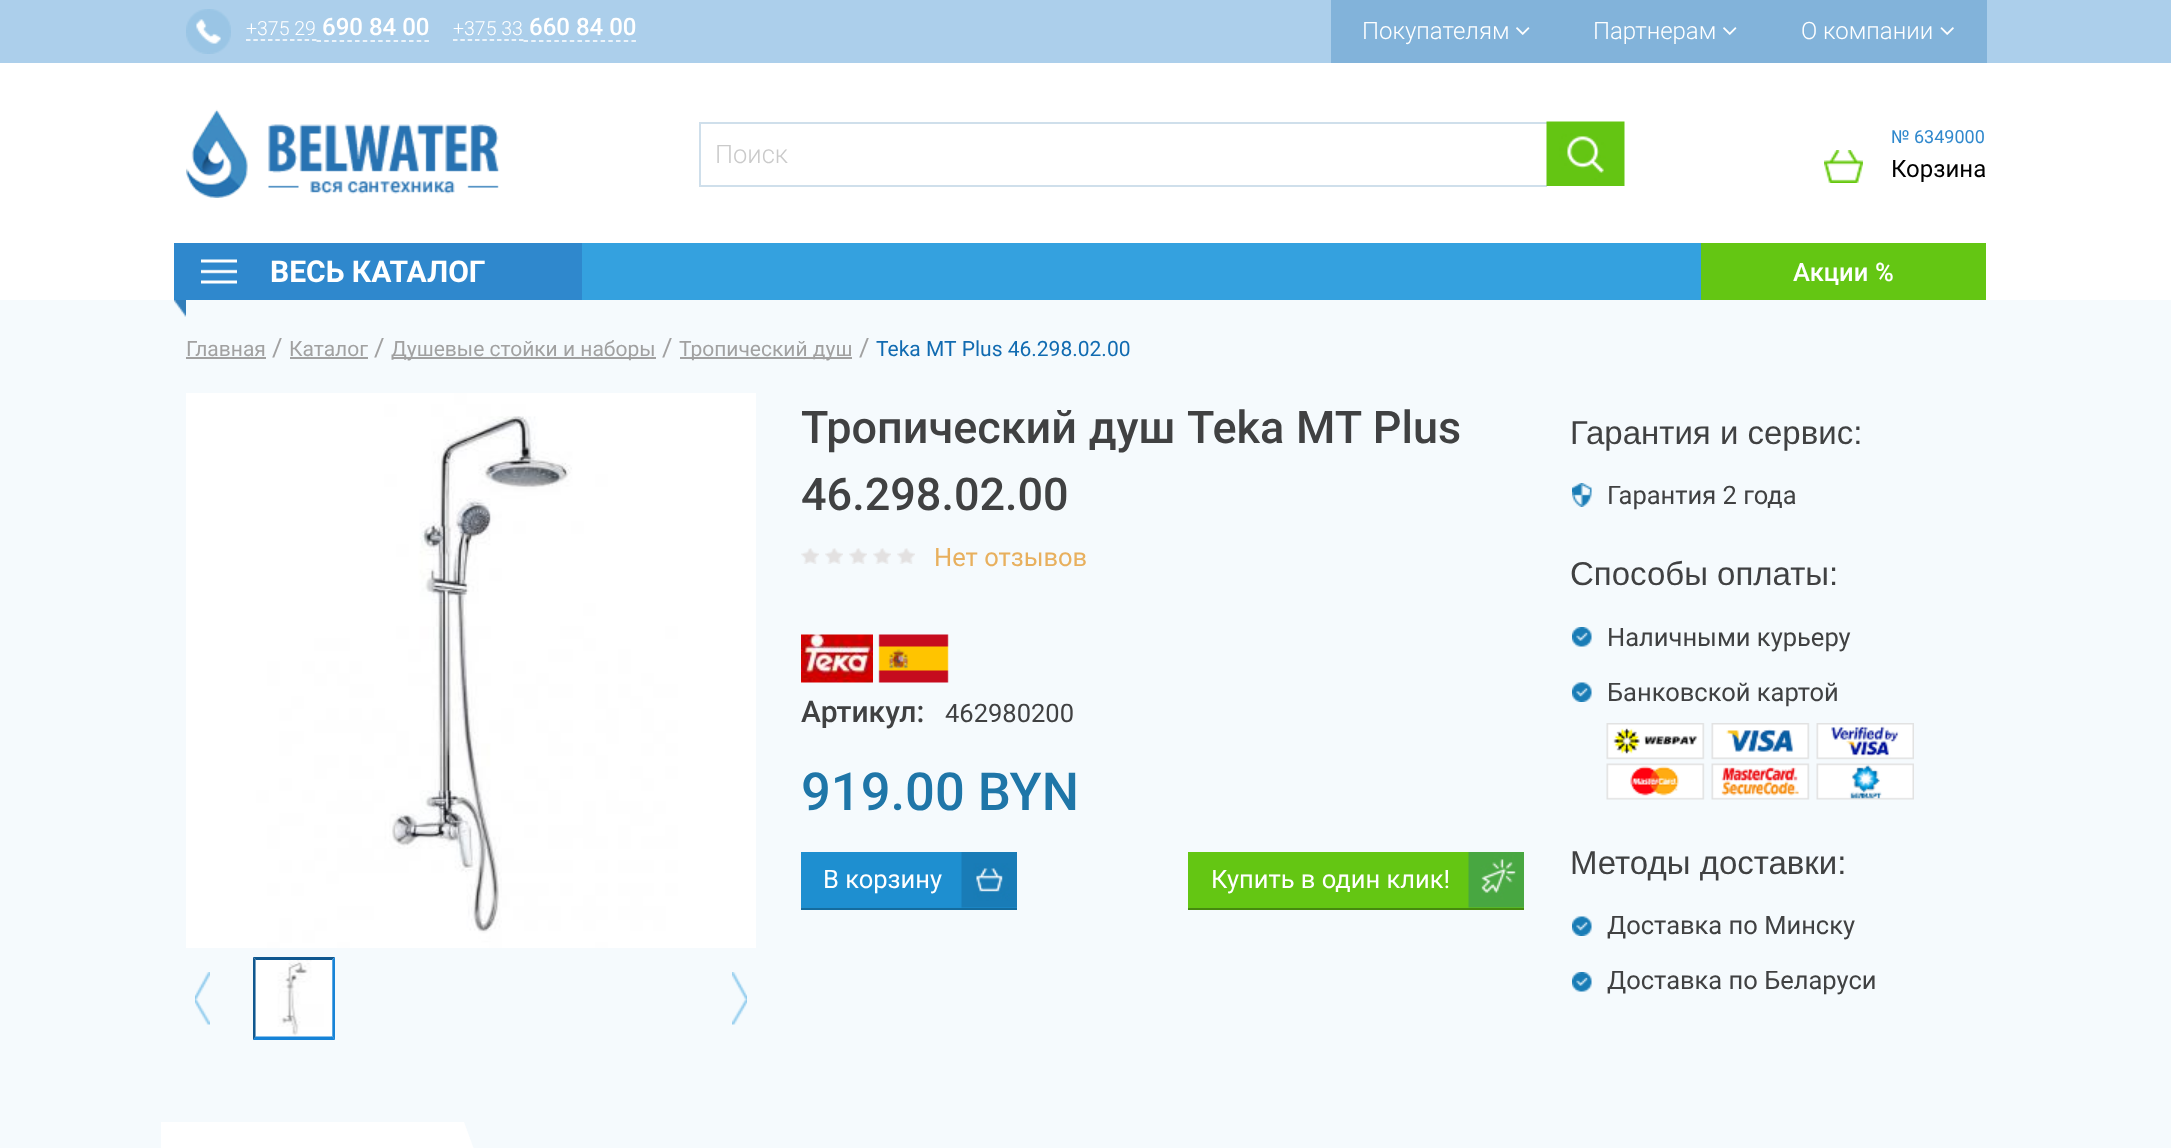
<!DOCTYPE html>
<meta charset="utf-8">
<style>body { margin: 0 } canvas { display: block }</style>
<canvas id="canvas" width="2171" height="1148"></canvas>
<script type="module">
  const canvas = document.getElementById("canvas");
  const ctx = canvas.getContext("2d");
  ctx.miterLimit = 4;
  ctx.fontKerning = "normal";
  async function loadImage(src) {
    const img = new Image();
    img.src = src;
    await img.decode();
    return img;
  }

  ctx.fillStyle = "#ffffff";
  ctx.fillRect(0, 0, 2171, 1148);
  ctx.fillStyle = "#accfeb";
  ctx.fillRect(0, 0, 2171, 63);
  ctx.drawImage(await loadImage("img1.png"), 186, 9, 45, 45);
  ctx.font = "300 19.5px Roboto";
  ctx.fillStyle = "#ffffff";
  ctx.fillText("+375 29", 246, 35);
  ctx.beginPath();
  ctx.moveTo(246, 40);
  ctx.lineTo(316.5, 40);
  ctx.strokeStyle = "#ffffff";
  ctx.lineWidth = 1.5;
  ctx.setLineDash([4.5, 2.83]);
  ctx.stroke();
  ctx.beginPath();
  ctx.moveTo(316.5, 41);
  ctx.lineTo(429, 41);
  ctx.setLineDash([4.5, 3.21]);
  ctx.stroke();
  ctx.font = "500 24px Roboto";
  ctx.fillText("690 84 00", 322, 35);
  ctx.font = "300 19.5px Roboto";
  ctx.fillText("+375 33", 453, 35);
  ctx.beginPath();
  ctx.moveTo(453, 40);
  ctx.lineTo(523.5, 40);
  ctx.setLineDash([4.5, 2.83]);
  ctx.stroke();
  ctx.beginPath();
  ctx.moveTo(523.5, 41);
  ctx.lineTo(636, 41);
  ctx.setLineDash([4.5, 3.21]);
  ctx.stroke();
  ctx.font = "500 24px Roboto";
  ctx.fillText("660 84 00", 529, 35);
  ctx.fillStyle = "#82b3da";
  ctx.fillRect(1331, 0, 656, 63);
  ctx.font = "300 24px Roboto";
  ctx.fillStyle = "#ffffff";
  ctx.fillText("Покупателям", 1362, 39);
  ctx.drawImage(await loadImage("img2.png"), 1516, 27, 14, 8);
  ctx.fillText("Партнерам", 1593, 39);
  ctx.drawImage(await loadImage("img2.png"), 1723, 27, 14, 8);
  ctx.fillText("О компании", 1801, 39);
  ctx.drawImage(await loadImage("img3.png"), 1940, 27, 14, 8);
  ctx.drawImage(await loadImage("img4.png"), 186, 109, 314, 89);
  ctx.fillStyle = "#cfdfeb";
  ctx.fillRect(699, 122, 848, 2);
  ctx.fillRect(699, 185, 848, 2);
  ctx.fillRect(699, 122, 2, 64);
  ctx.font = "300 25.5px Roboto";
  ctx.fillStyle = "#cacaca";
  ctx.fillText("Поиск", 715, 163);
  ctx.drawImage(await loadImage("img5.png"), 1546, 121, 79, 65);
  ctx.font = "18px Roboto";
  ctx.fillStyle = "#2f88cd";
  ctx.fillText("№ 6349000", 1891, 143);
  ctx.drawImage(await loadImage("img6.png"), 1824, 150, 39, 33);
  ctx.font = "24px Roboto";
  ctx.fillStyle = "#000000";
  ctx.fillText("Корзина", 1891, 177);
  ctx.fillStyle = "#34a1df";
  ctx.fillRect(582, 243, 1119, 57);
  ctx.fillStyle = "#2f88cd";
  ctx.fillRect(174, 243, 408, 57);
  ctx.drawImage(await loadImage("img7.png"), 201, 259, 36, 25);
  ctx.font = "bold 30px Roboto";
  ctx.fillStyle = "#ffffff";
  ctx.fillText("ВЕСЬ КАТАЛОГ", 270, 282);
  ctx.fillStyle = "#f5fafd";
  ctx.fillRect(0, 300, 2171, 848);
  ctx.drawImage(await loadImage("img8.png"), 174, 300, 12, 17);
  ctx.fillStyle = "#64c613";
  ctx.fillRect(1701, 243, 285, 57);
  ctx.font = "500 25.5px Roboto";
  ctx.fillStyle = "#ffffff";
  ctx.fillText("Акции", 1793, 281);
  ctx.fillText("%", 1875, 281);
  ctx.font = "21px Roboto";
  ctx.fillStyle = "#a1a1a1";
  ctx.fillText("Главная", 186, 356);
  ctx.fillRect(186, 357, 80, 2);
  ctx.font = "25.5px Roboto";
  ctx.fillText("/", 272, 356);
  ctx.font = "21px Roboto";
  ctx.fillText("Каталог", 289, 356);
  ctx.fillRect(290, 357, 78, 2);
  ctx.font = "25.5px Roboto";
  ctx.fillText("/", 374, 356);
  ctx.fillRect(392, 357, 264, 2);
  ctx.font = "21px Roboto";
  ctx.fillText("Душевые стойки и наборы", 391, 356);
  ctx.font = "25.5px Roboto";
  ctx.fillText("/", 662, 356);
  ctx.fillRect(680, 357, 172, 2);
  ctx.font = "21px Roboto";
  ctx.fillText("Тропический душ", 679, 356);
  ctx.font = "25.5px Roboto";
  ctx.fillText("/", 859, 356);
  ctx.font = "21px Roboto";
  ctx.fillStyle = "#116bb1";
  ctx.fillText("Teka MT Plus 46.298.02.00", 876, 356);
  ctx.drawImage(await loadImage("img9.png"), 186, 393, 570, 555);
  ctx.drawImage(await loadImage("img10.png"), 195, 972, 15, 53);
  ctx.fillStyle = "#0f578f";
  ctx.beginPath();
  ctx.moveTo(253, 957);
  ctx.lineTo(335, 957);
  ctx.lineTo(332, 960);
  ctx.lineTo(256, 960);
  ctx.closePath();
  ctx.fill();
  ctx.fillStyle = "#1683d7";
  ctx.beginPath();
  ctx.moveTo(335, 957);
  ctx.lineTo(335, 1040);
  ctx.lineTo(332, 1036);
  ctx.lineTo(332, 960);
  ctx.closePath();
  ctx.fill();
  ctx.beginPath();
  ctx.moveTo(335, 1040);
  ctx.lineTo(253, 1040);
  ctx.lineTo(256, 1036);
  ctx.lineTo(332, 1036);
  ctx.closePath();
  ctx.fill();
  ctx.fillStyle = "#0f578f";
  ctx.beginPath();
  ctx.moveTo(253, 1040);
  ctx.lineTo(253, 957);
  ctx.lineTo(256, 960);
  ctx.lineTo(256, 1036);
  ctx.closePath();
  ctx.fill();
  ctx.drawImage(await loadImage("img11.png"), 255, 960, 78, 77);
  ctx.drawImage(await loadImage("img12.png"), 732, 972, 15, 53);
  ctx.wordSpacing = "0.5px";
  ctx.font = "500 45px Roboto";
  ctx.fillStyle = "#404142";
  ctx.fillText("Тропический душ Teka MT Plus", 801, 443);
  ctx.wordSpacing = "0px";
  ctx.fillText("46.298.02.00", 801, 510);
  ctx.drawImage(await loadImage("img13.png"), 801, 548, 18, 16);
  ctx.drawImage(await loadImage("img13.png"), 825, 548, 18, 16);
  ctx.drawImage(await loadImage("img13.png"), 849, 548, 18, 16);
  ctx.drawImage(await loadImage("img13.png"), 873, 548, 18, 16);
  ctx.drawImage(await loadImage("img13.png"), 897, 548, 18, 16);
  ctx.font = "25.5px Roboto";
  ctx.fillStyle = "#e8b05e";
  ctx.fillText("Нет отзывов", 934, 566);
  ctx.drawImage(await loadImage("img14.png"), 801, 634, 72, 49);
  ctx.drawImage(await loadImage("img15.png"), 878, 634, 71, 49);
  ctx.font = "500 30px Roboto";
  ctx.fillStyle = "#404142";
  ctx.fillText("Артикул:", 801, 722);
  ctx.font = "25.5px Roboto";
  ctx.fillText("462980200", 945, 722);
  ctx.font = "500 52.5px Roboto";
  ctx.fillStyle = "#1f76a8";
  ctx.fillText("919.00 BYN", 801, 810);
  ctx.fillStyle = "#1e8fd0";
  ctx.fillRect(801, 852, 216, 56);
  ctx.drawImage(await loadImage("img16.png"), 961, 852, 56, 56);
  ctx.fillStyle = "#156c9e";
  ctx.fillRect(801, 908, 216, 2);
  ctx.font = "25.5px Roboto";
  ctx.fillStyle = "#ffffff";
  ctx.fillText("В корзину", 823, 888);
  ctx.fillStyle = "#64c613";
  ctx.fillRect(1188, 852, 336, 56);
  ctx.drawImage(await loadImage("img17.png"), 1468, 852, 56, 56);
  ctx.fillStyle = "#468a0f";
  ctx.fillRect(1188, 908, 336, 2);
  ctx.fillStyle = "#ffffff";
  ctx.fillText("Купить в один клик!", 1211, 888);
  ctx.font = "33px Liberation Sans";
  ctx.fillStyle = "#404142";
  ctx.fillText("Гарантия и сервис:", 1570, 444);
  ctx.drawImage(await loadImage("img18.png"), 1572, 483, 20, 24);
  ctx.font = "25.5px Roboto";
  ctx.fillText("Гарантия 2 года", 1607, 504);
  ctx.font = "33px Liberation Sans";
  ctx.fillText("Способы оплаты:", 1570, 585);
  ctx.drawImage(await loadImage("img19.png"), 1572, 627, 20, 20);
  ctx.font = "25.5px Roboto";
  ctx.fillText("Наличными курьеру", 1607, 646);
  ctx.drawImage(await loadImage("img20.png"), 1572, 682, 20, 20);
  ctx.fillText("Банковской картой", 1607, 701);
  ctx.drawImage(await loadImage("img21.png"), 1606, 723, 308, 77);
  ctx.font = "33px Liberation Sans";
  ctx.fillText("Методы доставки:", 1570, 874);
  ctx.drawImage(await loadImage("img20.png"), 1572, 916, 20, 20);
  ctx.font = "25.5px Roboto";
  ctx.fillText("Доставка по Минску", 1607, 934);
  ctx.drawImage(await loadImage("img19.png"), 1572, 972, 20, 20);
  ctx.fillText("Доставка по Беларуси", 1607, 989);
  ctx.fillStyle = "#ffffff";
  ctx.fillRect(161, 1122, 303, 26);
  ctx.beginPath();
  ctx.moveTo(464, 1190);
  ctx.lineTo(464, 1122);
  ctx.lineTo(489, 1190);
  ctx.closePath();
  ctx.fill();
</script>
